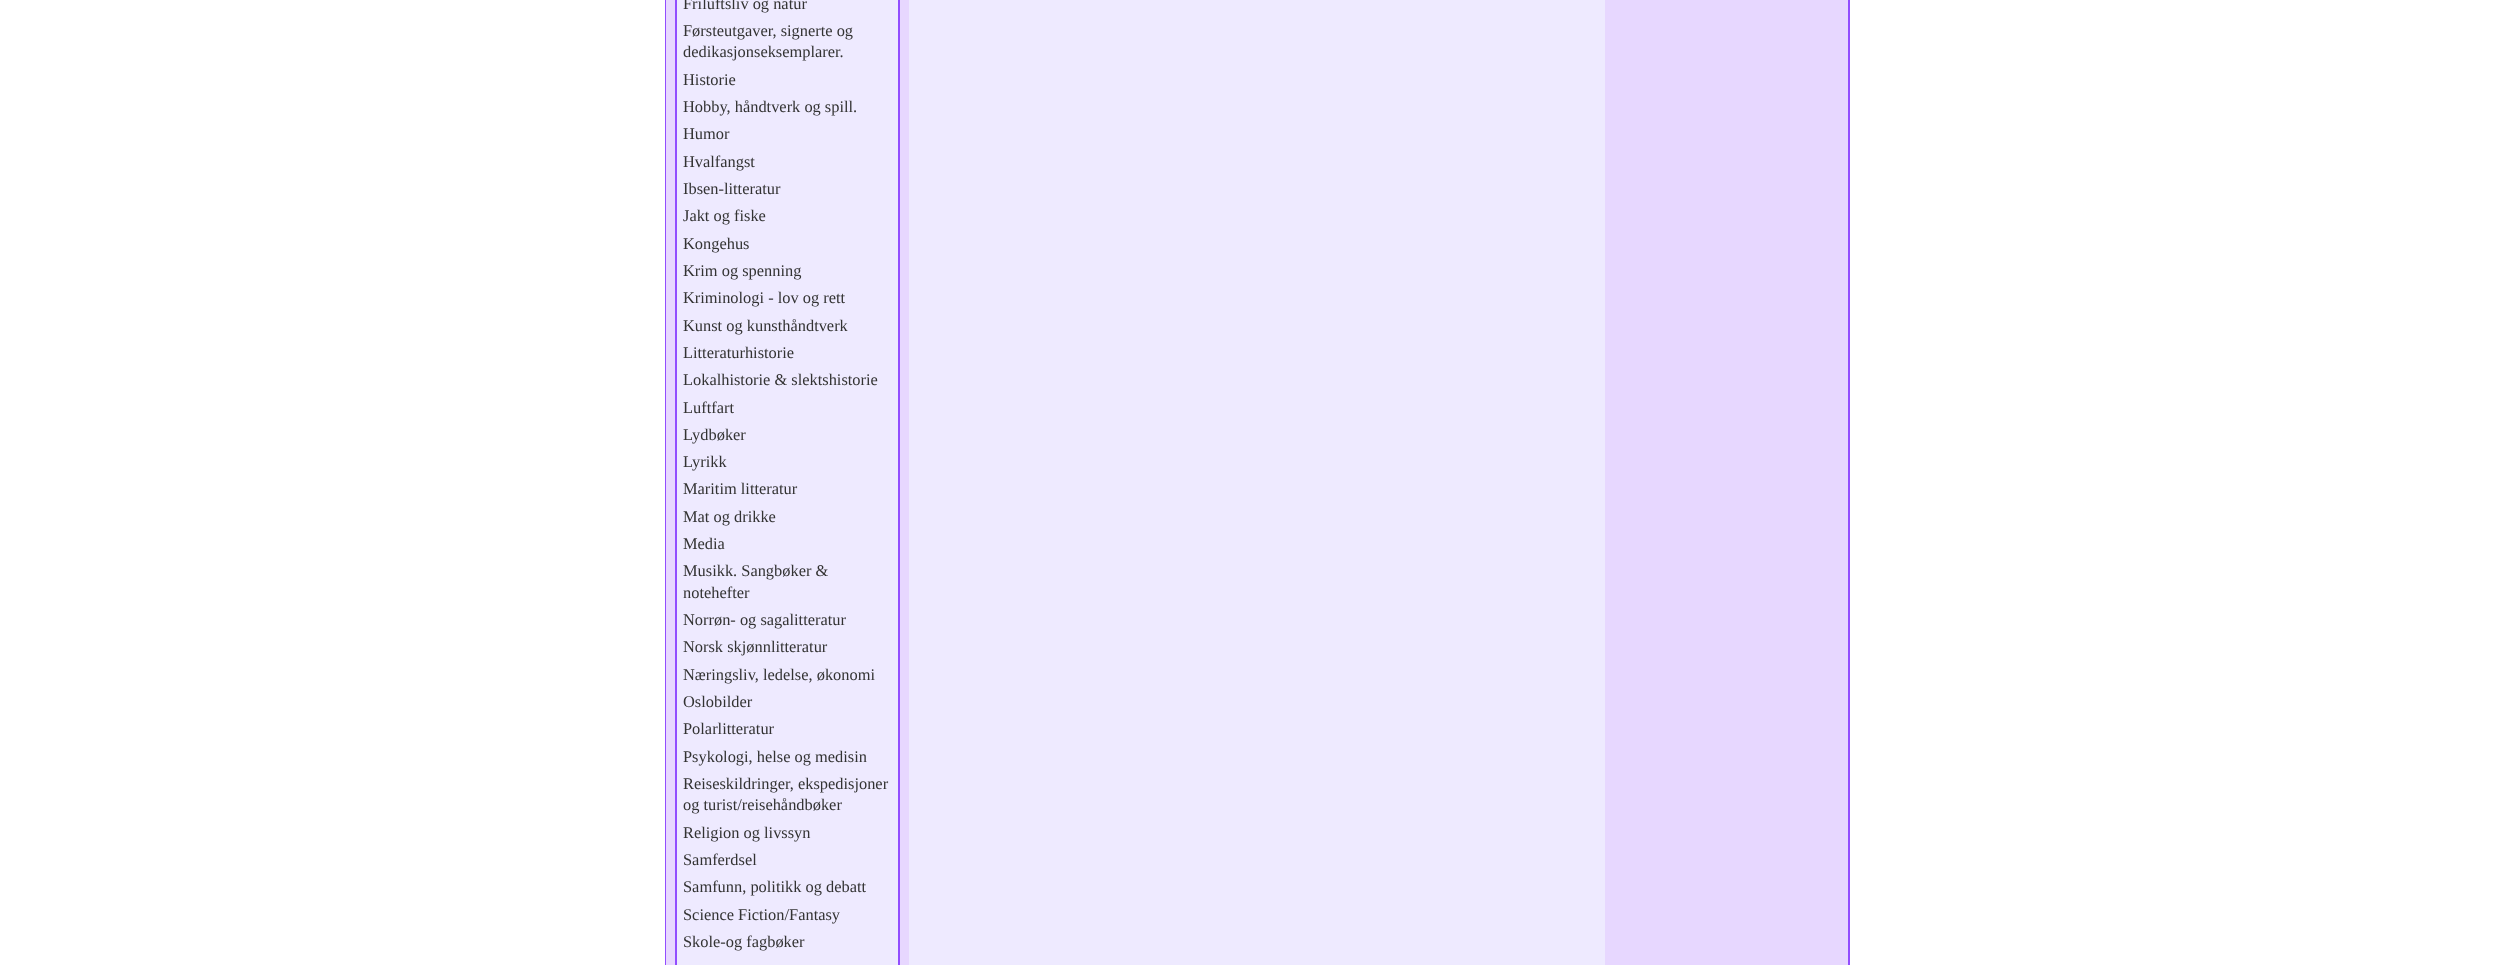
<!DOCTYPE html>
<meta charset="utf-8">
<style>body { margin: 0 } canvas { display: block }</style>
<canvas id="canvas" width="2514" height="965"></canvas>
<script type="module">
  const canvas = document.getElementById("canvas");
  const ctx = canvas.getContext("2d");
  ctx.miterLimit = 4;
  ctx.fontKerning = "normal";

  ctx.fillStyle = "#ffffff";
  ctx.fillRect(0, 0, 2514, 965);
  ctx.strokeStyle = "#924dff";
  ctx.lineWidth = 2;
  ctx.strokeRect(666, -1, 1183, 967);
  ctx.fillStyle = "#e7d7ff";
  ctx.fillRect(666, 0, 243, 965);
  ctx.fillStyle = "#eeeaff";
  ctx.beginPath();
  ctx.rect(676, -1, 223, 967);
  ctx.fill();
  ctx.stroke();
  ctx.font = "16.4px Liberation Serif";
  ctx.fillStyle = "#333333";
  ctx.fillText("Friluftsliv og natur", 683, 9);
  ctx.fillText("Førsteutgaver, signerte og", 683, 36);
  ctx.fillText("dedikasjonseksemplarer.", 683, 57);
  ctx.fillText("Historie", 683, 85);
  ctx.fillText("Hobby, håndtverk og spill.", 683, 112);
  ctx.fillText("Humor", 683, 139);
  ctx.fillText("Hvalfangst", 683, 167);
  ctx.fillText("Ibsen-litteratur", 683, 194);
  ctx.fillText("Jakt og fiske", 683, 221);
  ctx.fillText("Kongehus", 683, 249);
  ctx.fillText("Krim og spenning", 683, 276);
  ctx.fillText("Kriminologi - lov og rett", 683, 303);
  ctx.fillText("Kunst og kunsthåndtverk", 683, 331);
  ctx.fillText("Litteraturhistorie", 683, 358);
  ctx.fillText("Lokalhistorie & slektshistorie", 683, 385);
  ctx.fillText("Luftfart", 683, 413);
  ctx.fillText("Lydbøker", 683, 440);
  ctx.fillText("Lyrikk", 683, 467);
  ctx.fillText("Maritim litteratur", 683, 494);
  ctx.fillText("Mat og drikke", 683, 522);
  ctx.fillText("Media", 683, 549);
  ctx.fillText("Musikk. Sangbøker &", 683, 576);
  ctx.fillText("notehefter", 683, 598);
  ctx.fillText("Norrøn- og sagalitteratur", 683, 625);
  ctx.fillText("Norsk skjønnlitteratur", 683, 652);
  ctx.fillText("Næringsliv, ledelse, økonomi", 683, 680);
  ctx.fillText("Oslobilder", 683, 707);
  ctx.fillText("Polarlitteratur", 683, 734);
  ctx.fillText("Psykologi, helse og medisin", 683, 762);
  ctx.fillText("Reiseskildringer, ekspedisjoner", 683, 789);
  ctx.fillText("og turist/reisehåndbøker", 683, 810);
  ctx.fillText("Religion og livssyn", 683, 838);
  ctx.fillText("Samferdsel", 683, 865);
  ctx.fillText("Samfunn, politikk og debatt", 683, 892);
  ctx.fillText("Science Fiction/Fantasy", 683, 920);
  ctx.fillText("Skole-og fagbøker", 683, 947);
  ctx.fillStyle = "#eeeaff";
  ctx.fillRect(909, 0, 696, 965);
  ctx.fillStyle = "#e7d7ff";
  ctx.fillRect(1605, 0, 243, 965);
</script>
